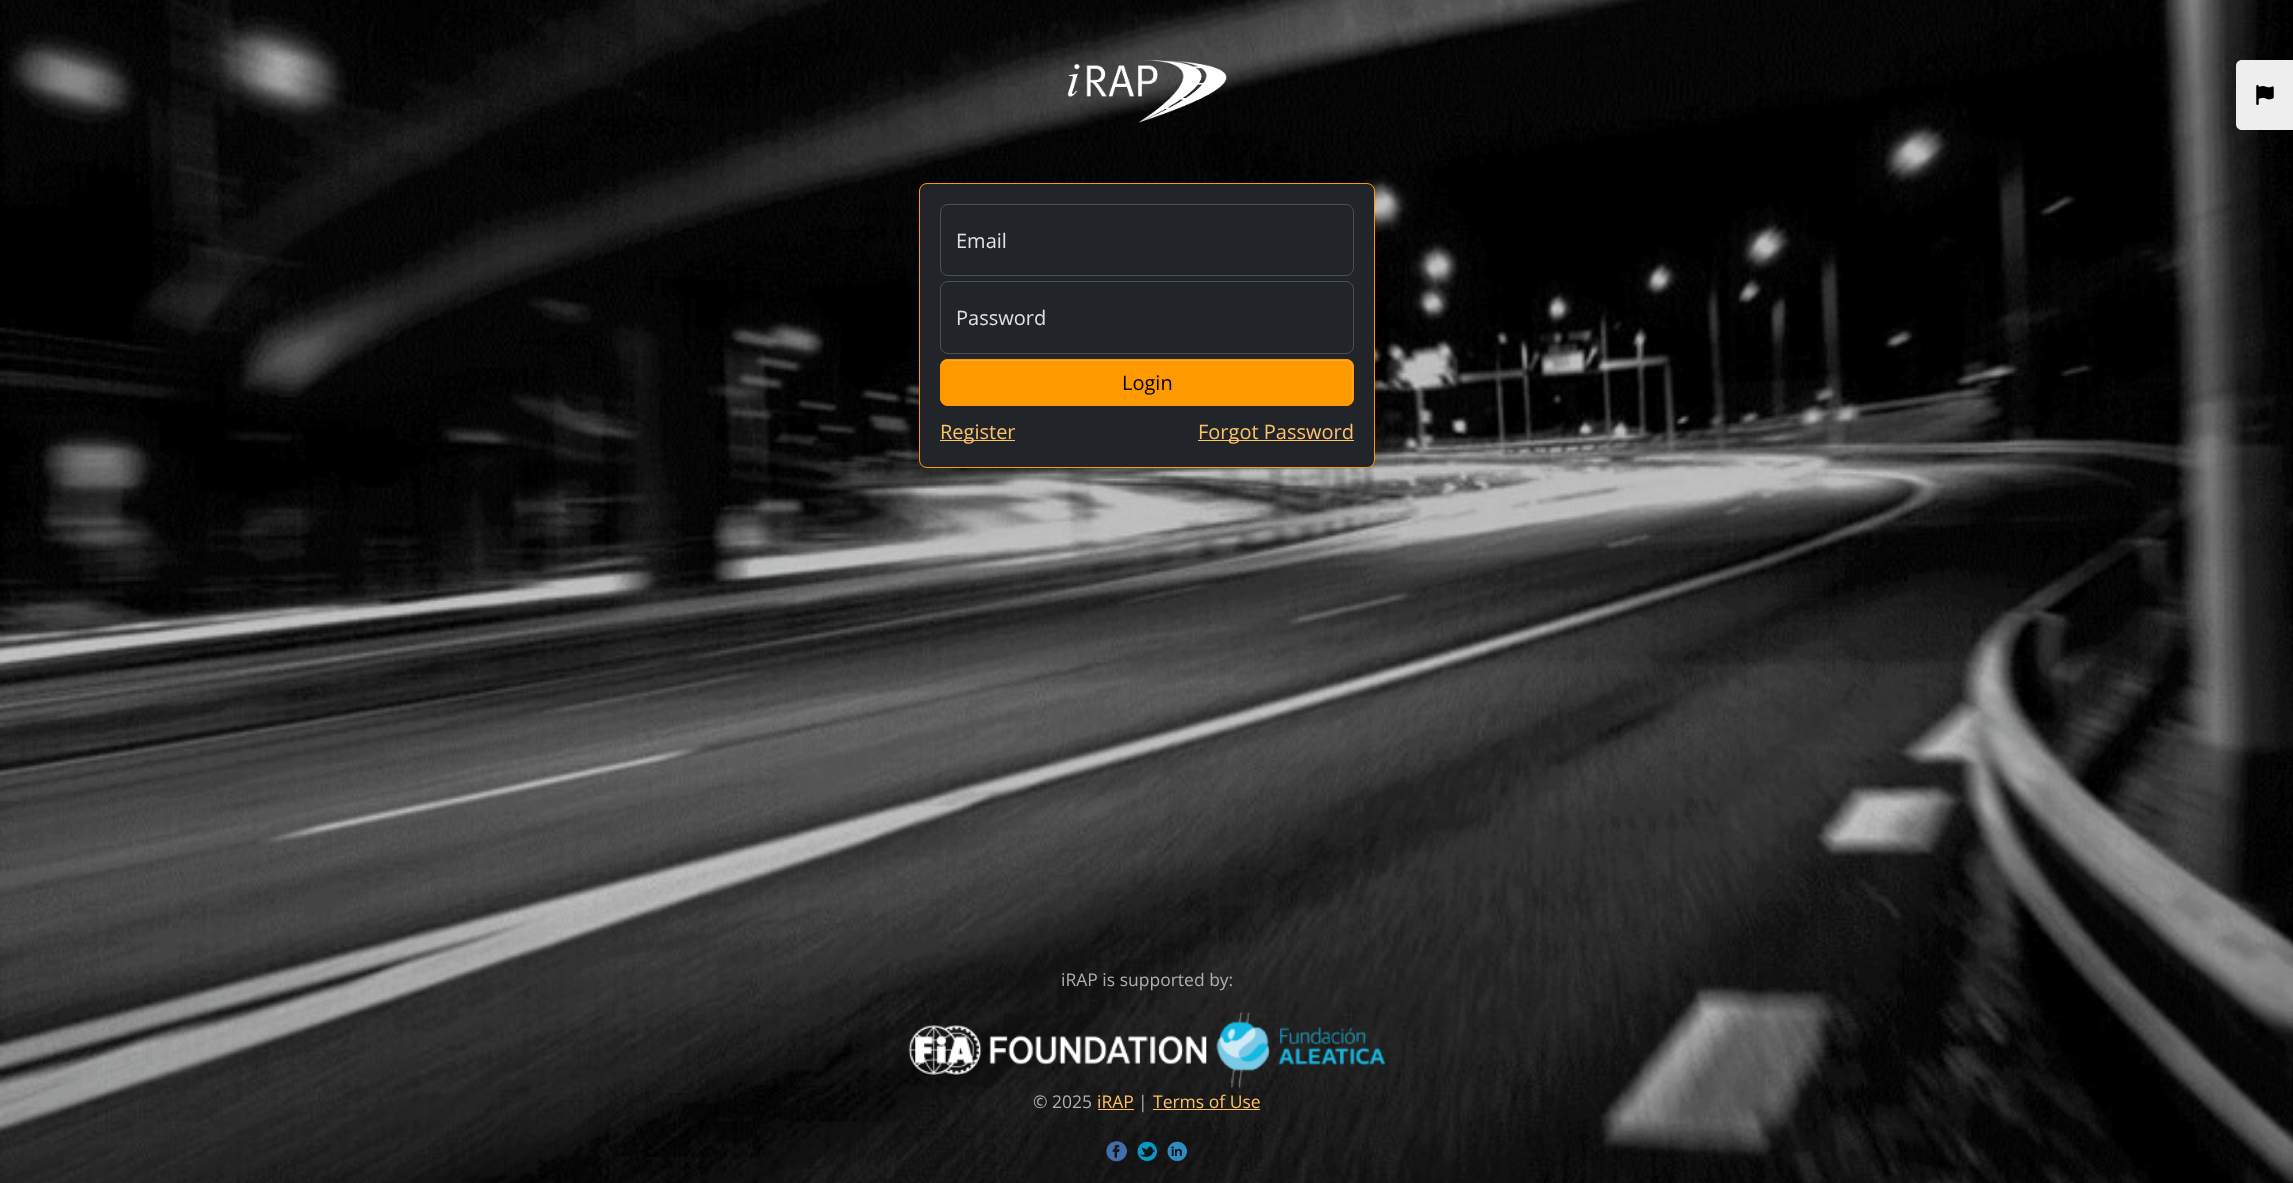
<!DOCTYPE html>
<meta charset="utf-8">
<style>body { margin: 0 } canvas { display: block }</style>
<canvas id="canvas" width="2293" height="1183"></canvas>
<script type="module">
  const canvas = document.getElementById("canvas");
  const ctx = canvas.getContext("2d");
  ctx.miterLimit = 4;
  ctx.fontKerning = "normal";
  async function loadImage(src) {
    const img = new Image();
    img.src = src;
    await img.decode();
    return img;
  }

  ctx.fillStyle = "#ffffff";
  ctx.fillRect(0, 0, 2293, 1183);
  ctx.drawImage(await loadImage("img1.png"), 0, 0, 2293, 1183);
  ctx.fillStyle = "#eeeeee";
  ctx.beginPath();
  ctx.moveTo(2242, 60);
  ctx.lineTo(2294, 60);
  ctx.lineTo(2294, 130);
  ctx.lineTo(2242, 130);
  ctx.bezierCurveTo(2238.5, 130, 2236, 127.5, 2236, 124);
  ctx.lineTo(2236, 66);
  ctx.bezierCurveTo(2236, 62.5, 2238.5, 60, 2242, 60);
  ctx.closePath();
  ctx.fill();
  ctx.drawImage(await loadImage("img2.png"), 2256, 85, 18, 20);
  ctx.drawImage(await loadImage("img3.png"), 1067, 60, 160, 63);
  ctx.fillStyle = "#212529";
  ctx.beginPath();
  ctx.roundRect(919.5, 183.5, 455, 284, 7.5);
  ctx.fill();
  ctx.strokeStyle = "#ff9900";
  ctx.stroke();
  ctx.beginPath();
  ctx.roundRect(940.5, 204.5, 413, 71, 7.5);
  ctx.strokeStyle = "#495057";
  ctx.stroke();
  ctx.font = "20px Open Sans";
  ctx.fillStyle = "#dee2e6";
  ctx.fillText("Email", 956, 248);
  ctx.beginPath();
  ctx.roundRect(940.5, 281.5, 413, 72, 7.5);
  ctx.stroke();
  ctx.fillText("Password", 956, 325);
  ctx.fillStyle = "#ff9900";
  ctx.beginPath();
  ctx.roundRect(940, 359, 414, 47, 8);
  ctx.fill();
  ctx.fillStyle = "#ffa826";
  ctx.beginPath();
  ctx.moveTo(948, 361);
  ctx.lineTo(1346, 361);
  ctx.bezierCurveTo(1350, 361, 1352, 364, 1352, 368);
  ctx.lineTo(1352, 400);
  ctx.bezierCurveTo(1352, 401, 1352, 402, 1351, 403);
  ctx.bezierCurveTo(1352, 402, 1353, 401, 1353, 399);
  ctx.lineTo(1353, 366);
  ctx.bezierCurveTo(1353, 363, 1350, 360, 1347, 360);
  ctx.lineTo(947, 360);
  ctx.bezierCurveTo(944, 360, 941, 363, 941, 366);
  ctx.lineTo(941, 368);
  ctx.bezierCurveTo(941, 364, 944, 361, 948, 361);
  ctx.closePath();
  ctx.fill();
  ctx.beginPath();
  ctx.roundRect(940.5, 359.5, 413, 46, 7.5);
  ctx.strokeStyle = "#ff9900";
  ctx.stroke();
  ctx.fillStyle = "#000000";
  ctx.fillText("Login", 1122, 390);
  ctx.fillStyle = "#ffc266";
  ctx.fillRect(940, 440, 75, 1);
  ctx.fillText("Register", 940, 439);
  ctx.fillRect(1198, 440, 156, 1);
  ctx.fillText("Forgot Password", 1198, 439);
  ctx.font = "17.5px Open Sans";
  ctx.fillStyle = "#adb0b3";
  ctx.fillText("iRAP is supported by:", 1061, 986);
  ctx.drawImage(await loadImage("img4.png"), 908, 1025, 299, 50);
  ctx.drawImage(await loadImage("img5.png"), 1216, 1012, 169, 76);
  ctx.fillText("© 2025", 1033, 1108);
  ctx.fillStyle = "#ffc266";
  ctx.fillText("iRAP", 1097, 1108);
  ctx.fillRect(1098, 1109, 36, 1);
  ctx.fillStyle = "#adb0b3";
  ctx.fillText("|", 1138, 1108);
  ctx.fillStyle = "#ffc266";
  ctx.fillText("Terms of Use", 1153, 1108);
  ctx.fillRect(1153, 1109, 107, 1);
  ctx.drawImage(await loadImage("img6.png"), 1106, 1141, 22, 21);
  ctx.drawImage(await loadImage("img7.png"), 1137, 1141, 21, 21);
  ctx.drawImage(await loadImage("img8.png"), 1167, 1141, 21, 21);
</script>
